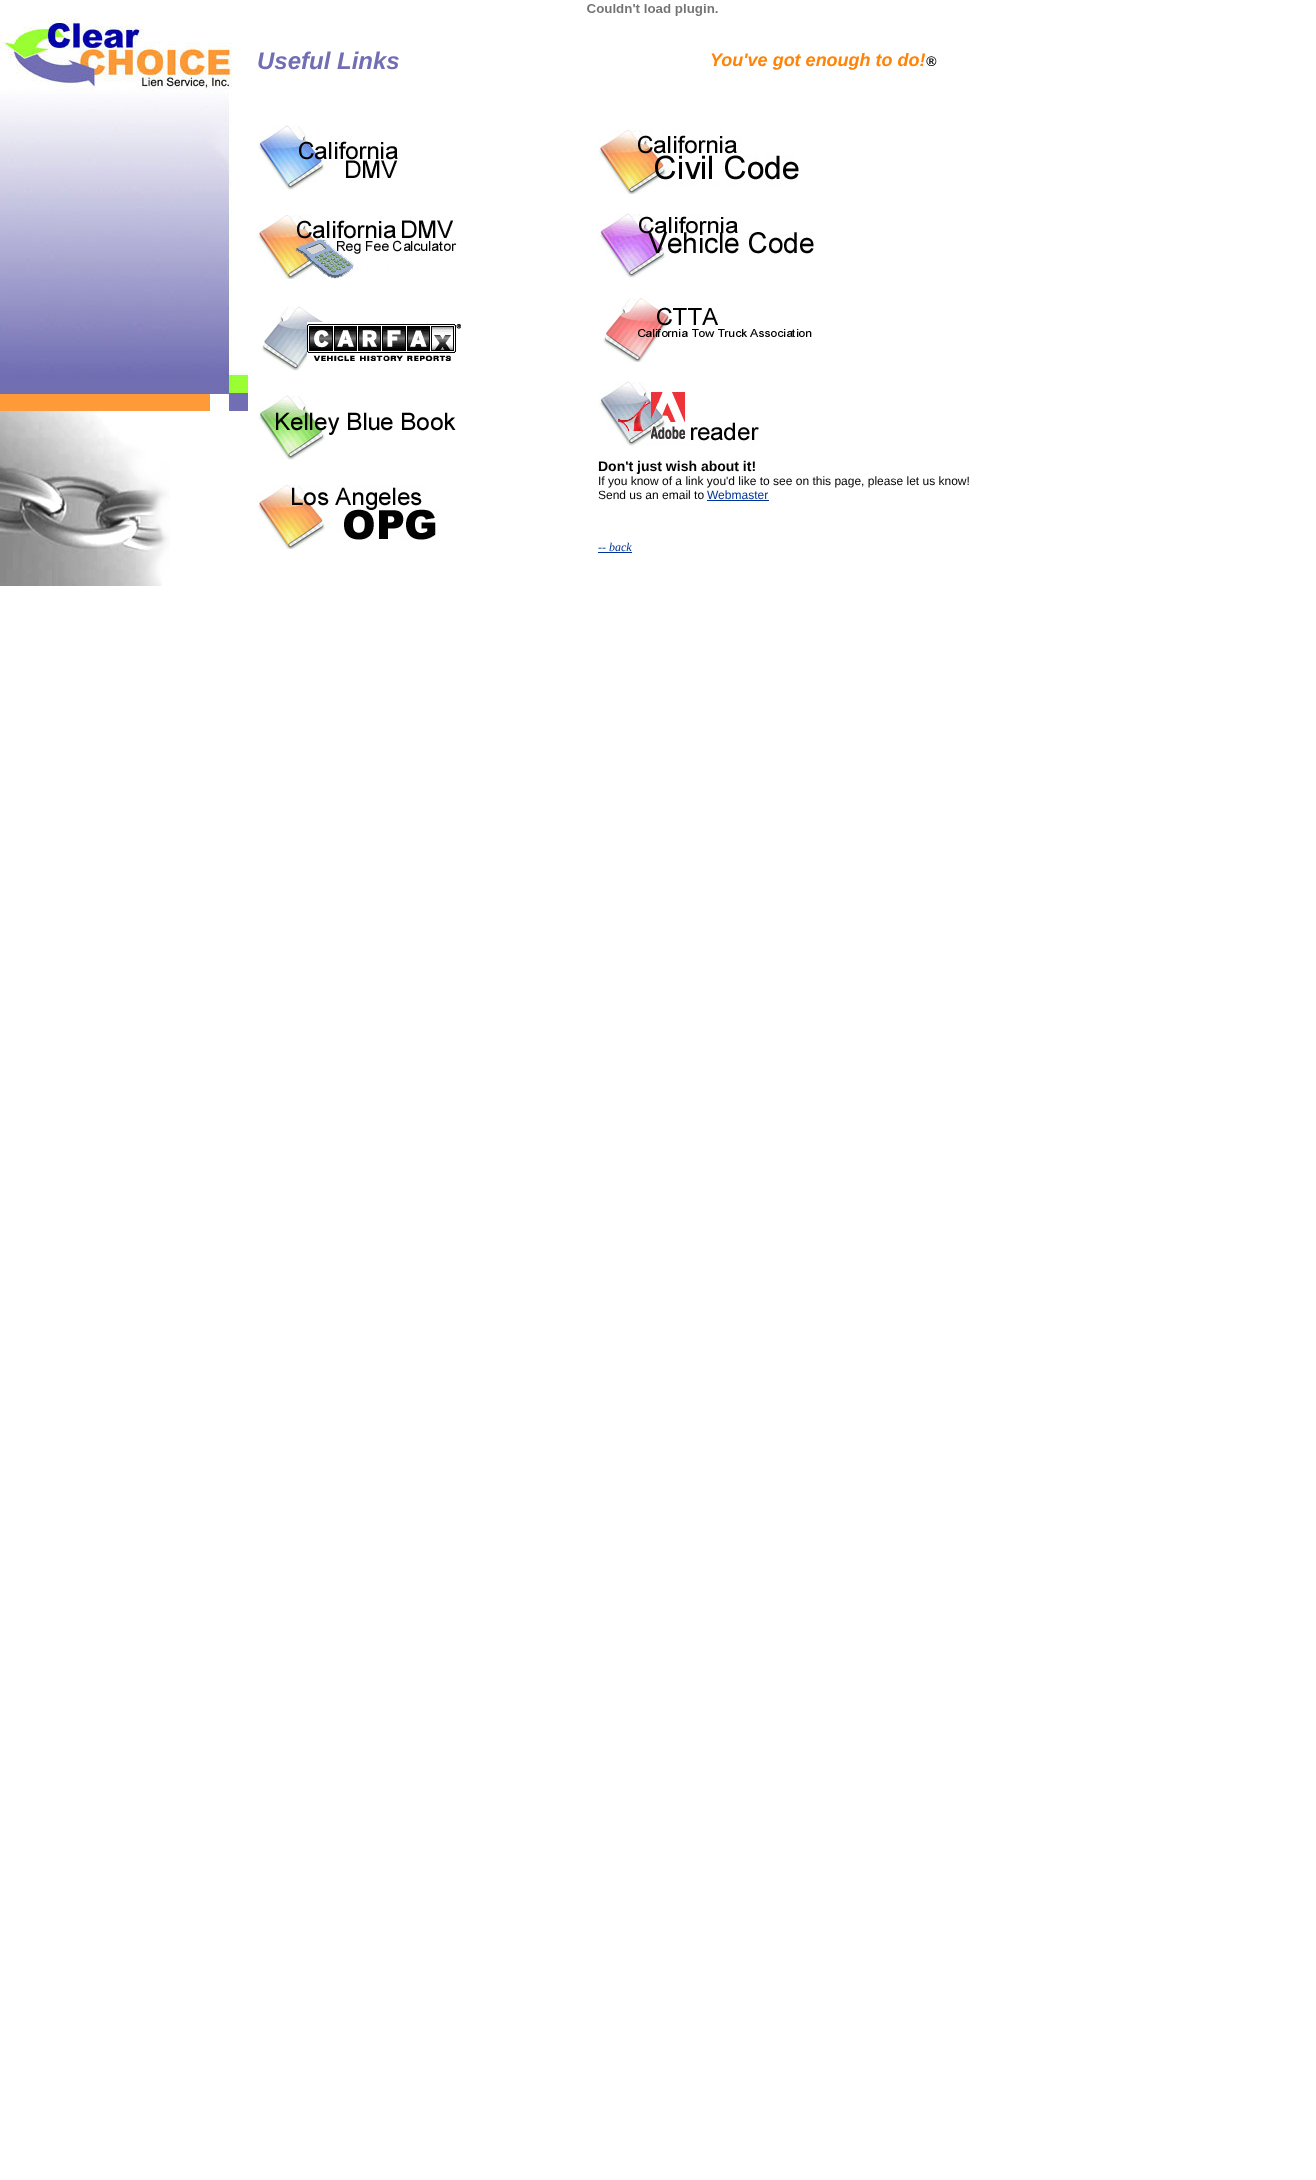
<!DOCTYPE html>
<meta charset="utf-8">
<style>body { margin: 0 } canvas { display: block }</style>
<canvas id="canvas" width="1316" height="2180"></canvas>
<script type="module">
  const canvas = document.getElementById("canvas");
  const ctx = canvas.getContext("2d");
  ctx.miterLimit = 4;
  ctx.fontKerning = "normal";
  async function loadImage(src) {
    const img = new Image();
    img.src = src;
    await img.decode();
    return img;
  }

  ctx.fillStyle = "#ffffff";
  ctx.fillRect(0, 0, 1316, 2180);
  ctx.drawImage(await loadImage("img1.png"), 587, 4, 131, 12);
  ctx.drawImage(await loadImage("img2.png"), 0, 18, 248, 393);
  ctx.drawImage(await loadImage("img3.png"), 0, 411, 170, 175);
  ctx.font = "italic bold 24px Liberation Sans";
  ctx.fillStyle = "#716eb3";
  ctx.fillText("Useful Links", 257, 69);
  ctx.font = "italic bold 18px Liberation Sans";
  ctx.fillStyle = "#ff8306";
  ctx.fillText("You've got enough to do!", 710, 66);
  ctx.font = "italic bold 14px Liberation Sans";
  ctx.fillStyle = "#000000";
  ctx.fillText("®", 926, 66);
  ctx.drawImage(await loadImage("img4.png"), 257, 125, 144, 65);
  ctx.drawImage(await loadImage("img5.png"), 257, 215, 200, 64);
  ctx.drawImage(await loadImage("img6.png"), 261, 306, 200, 65);
  ctx.drawImage(await loadImage("img7.png"), 257, 395, 199, 65);
  ctx.drawImage(await loadImage("img8.png"), 257, 485, 182, 64);
  ctx.drawImage(await loadImage("img9.png"), 598, 130, 201, 64);
  ctx.drawImage(await loadImage("img10.png"), 598, 213, 216, 65);
  ctx.drawImage(await loadImage("img11.png"), 603, 298, 209, 64);
  ctx.drawImage(await loadImage("img12.png"), 598, 381, 161, 65);
  ctx.font = "bold 14px Liberation Sans";
  ctx.fillText("Don't just wish about it!", 598, 471);
  ctx.font = "12px Liberation Sans";
  ctx.fillText("If you know of a link you'd like to see on this page, please let us know!", 598, 485);
  ctx.fillText("Send us an email to", 598, 499);
  ctx.fillStyle = "#003399";
  ctx.fillText("Webmaster", 707, 499);
  ctx.fillRect(707, 500, 62, 1);
  ctx.font = "italic 12px Liberation Serif";
  ctx.fillText("-- back", 598, 551);
  ctx.fillRect(598, 552, 34, 1);
</script>
